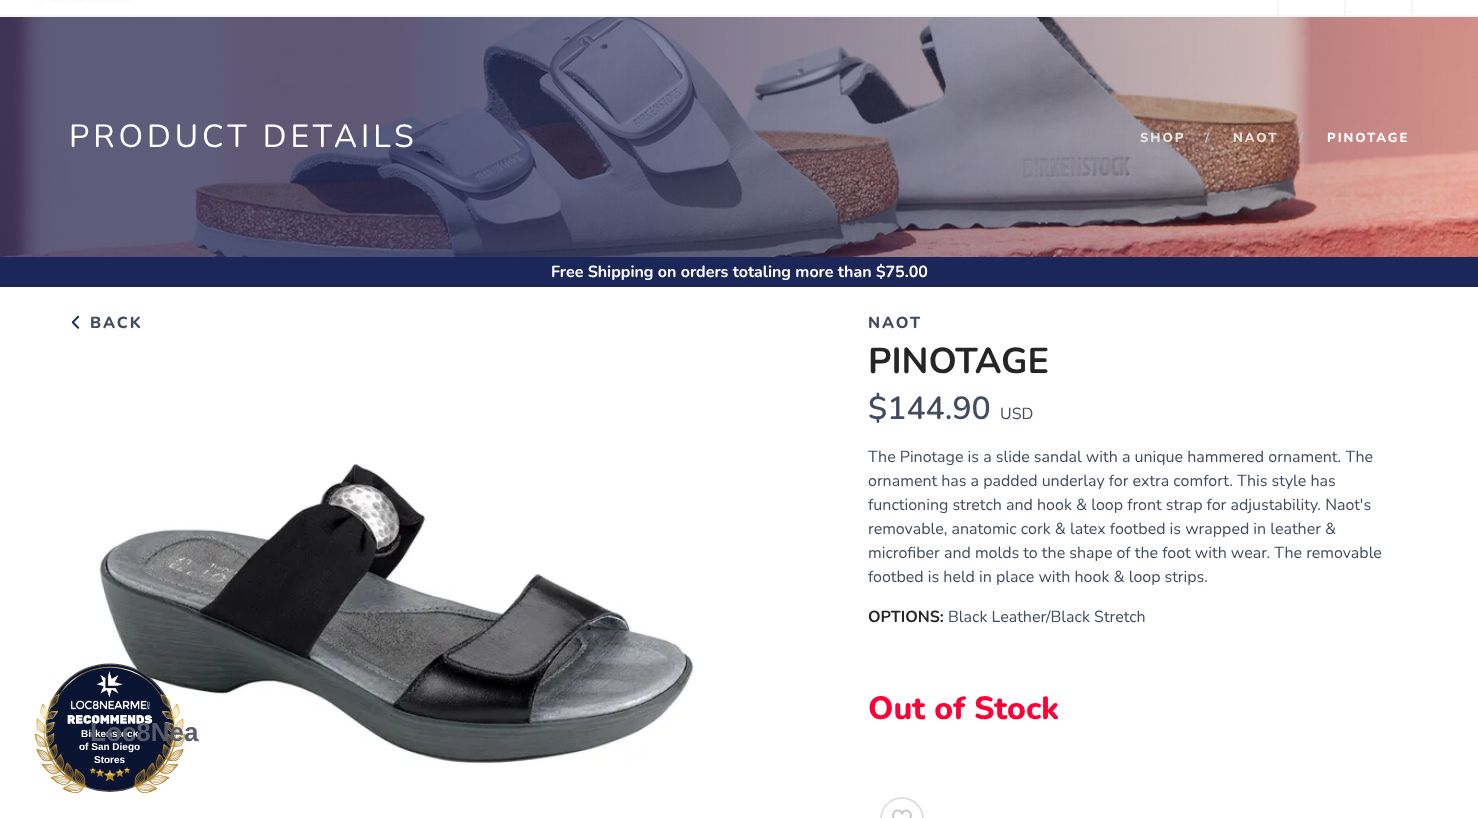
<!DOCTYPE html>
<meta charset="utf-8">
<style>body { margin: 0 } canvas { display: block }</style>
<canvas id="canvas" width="1478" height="818"></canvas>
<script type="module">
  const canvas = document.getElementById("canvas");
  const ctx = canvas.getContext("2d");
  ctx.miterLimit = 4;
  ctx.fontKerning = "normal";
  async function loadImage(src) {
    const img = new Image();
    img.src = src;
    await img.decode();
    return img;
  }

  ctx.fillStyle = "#ffffff";
  ctx.fillRect(0, 0, 1478, 818);
  ctx.fillStyle = "#f5f6fa";
  ctx.fillRect(0, 15, 1478, 2);
  ctx.drawImage(await loadImage("img1.png"), 36, 0, 97, 3);
  ctx.fillRect(1277, 0, 2, 17);
  ctx.fillRect(1344, 0, 2, 17);
  ctx.fillRect(1411, 0, 2, 17);
  ctx.drawImage(await loadImage("img2.png"), 0, 17, 1478, 240);
  ctx.letterSpacing = "4px";
  ctx.font = "32px Nunito";
  ctx.fillStyle = "#ffffff";
  ctx.fillText("PRODUCT DETAILS", 69, 147);
  ctx.letterSpacing = "2px";
  ctx.font = "800 13px Nunito";
  ctx.fillStyle = "#eae6e6";
  ctx.fillText("SHOP", 1140, 142);
  ctx.fillStyle = "#bbbbbb";
  ctx.fillText("/", 1205, 142);
  ctx.fillStyle = "#eae1dd";
  ctx.fillText("NAOT", 1233, 142);
  ctx.fillStyle = "#bbbbbb";
  ctx.fillText("/", 1299, 142);
  ctx.fillStyle = "#ffffff";
  ctx.fillText("PINOTAGE", 1327, 142);
  ctx.fillStyle = "#1c2759";
  ctx.fillRect(0, 257, 1478, 30);
  ctx.letterSpacing = "0px";
  ctx.font = "bold 16px Nunito";
  ctx.fillStyle = "#ffffff";
  ctx.fillText("Free Shipping on orders totaling more than $75.00", 551, 277);
  ctx.drawImage(await loadImage("img3.png"), 71, 315, 9, 14);
  ctx.letterSpacing = "2px";
  ctx.font = "800 16px Nunito";
  ctx.fillStyle = "#434c5e";
  ctx.fillText("BACK", 90, 328);
  ctx.drawImage(await loadImage("img4.png"), 99, 461, 595, 305);
  ctx.fillText("NAOT", 868, 328);
  ctx.letterSpacing = "0px";
  ctx.font = "bold 36px Nunito";
  ctx.fillStyle = "#252525";
  ctx.fillText("PINOTAGE", 868, 373);
  ctx.font = "600 32px Nunito";
  ctx.fillStyle = "#434c5e";
  ctx.fillText("$144.90", 868, 419);
  ctx.font = "16px Nunito";
  ctx.fillText("USD", 1000, 419);
  ctx.fillText("The Pinotage is a slide sandal with a unique hammered ornament. The", 868, 462);
  ctx.fillText("ornament has a padded underlay for extra comfort. This style has", 868, 486);
  ctx.fillText("functioning stretch and hook & loop front strap for adjustability. Naot's", 868, 510);
  ctx.fillText("removable, anatomic cork & latex footbed is wrapped in leather &", 868, 534);
  ctx.fillText("microfiber and molds to the shape of the foot with wear. The removable", 868, 558);
  ctx.fillText("footbed is held in place with hook & loop strips.", 868, 582);
  ctx.font = "bold 16px Nunito";
  ctx.fillStyle = "#252525";
  ctx.fillText("OPTIONS:", 868, 622);
  ctx.font = "16px Nunito";
  ctx.fillStyle = "#434c5e";
  ctx.fillText("Black Leather/Black Stretch", 948, 622);
  ctx.font = "800 32px Nunito";
  ctx.fillStyle = "#ff0036";
  ctx.fillText("Out of Stock", 868, 719);
  ctx.beginPath();
  ctx.arc(902, 819, 21, 0, Math.PI * 2);
  ctx.strokeStyle = "#e0e0e0";
  ctx.lineWidth = 2;
  ctx.stroke();
  ctx.drawImage(await loadImage("img5.png"), 892, 809, 20, 9);
  ctx.drawImage(await loadImage("img6.png"), 34, 663, 152, 130);
  ctx.font = "bold 10px Liberation Sans";
  ctx.fillStyle = "#ffffff";
  ctx.fillText("Birkenstock", 81, 737);
  ctx.font = "bold 26px Liberation Sans";
  ctx.fillStyle = "#575b6a";
  ctx.fillText("Loc8Nea", 90, 741);
  ctx.font = "bold 10px Liberation Sans";
  ctx.fillStyle = "#ffffff";
  ctx.fillText("of San Diego", 79, 750);
  ctx.fillText("Stores", 94, 763);
</script>
